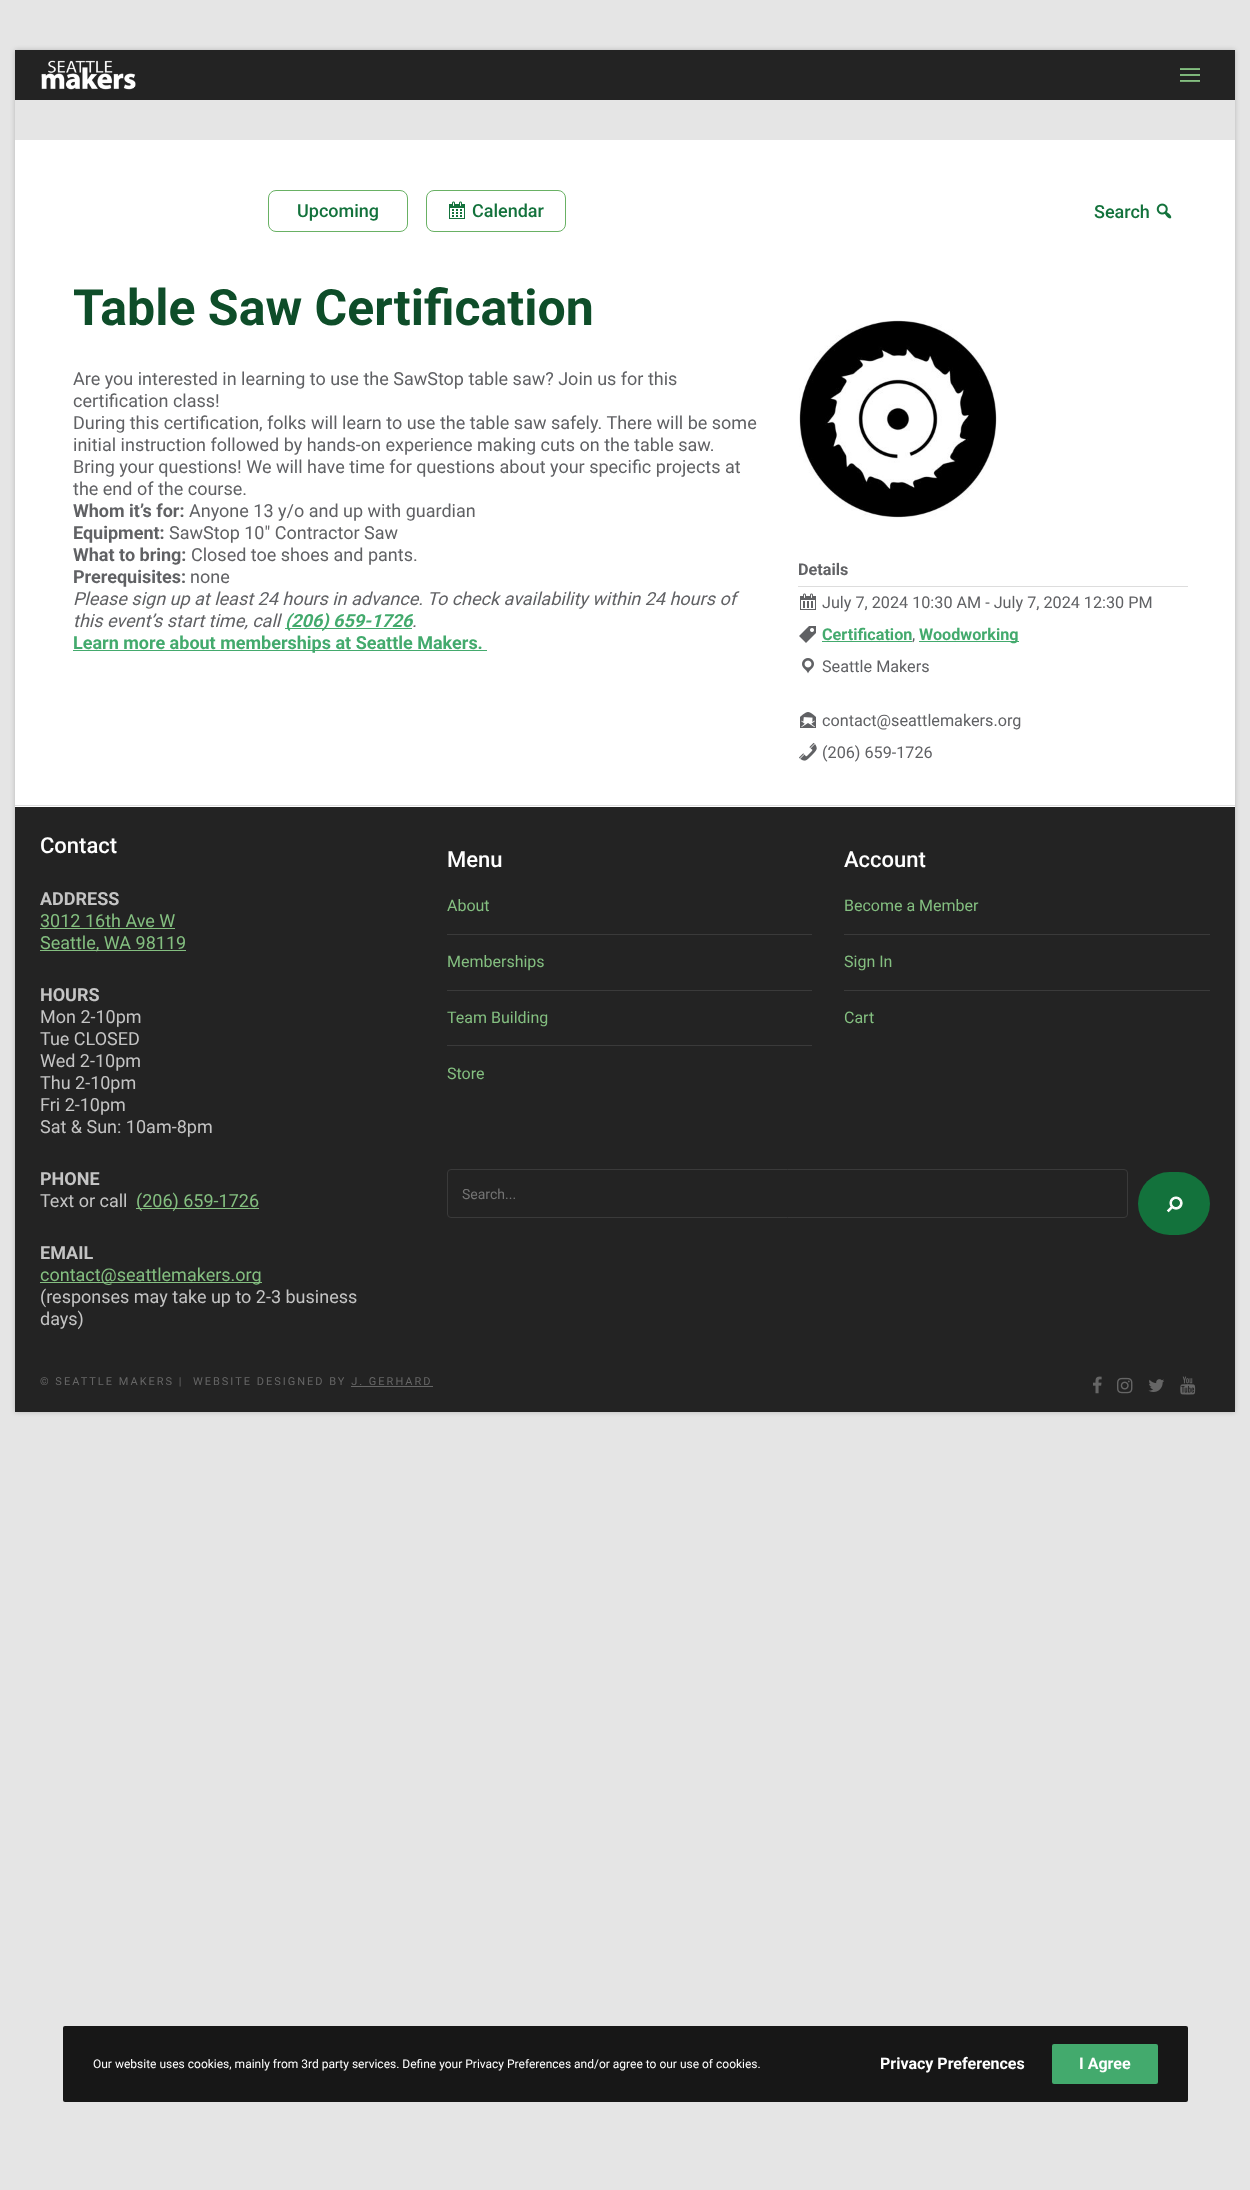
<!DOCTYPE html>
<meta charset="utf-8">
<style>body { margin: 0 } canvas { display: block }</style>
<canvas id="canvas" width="1250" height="2190"></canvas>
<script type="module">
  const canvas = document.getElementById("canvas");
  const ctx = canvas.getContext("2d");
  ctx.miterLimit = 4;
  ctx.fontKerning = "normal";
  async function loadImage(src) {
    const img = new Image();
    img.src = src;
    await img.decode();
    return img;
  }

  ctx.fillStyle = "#e5e5e5";
  ctx.fillRect(0, 0, 1250, 2190);
  ctx.save();
  ctx.beginPath();
  ctx.moveTo(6, 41);
  ctx.lineTo(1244, 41);
  ctx.lineTo(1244, 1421);
  ctx.lineTo(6, 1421);
  ctx.closePath();
  ctx.moveTo(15, 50);
  ctx.lineTo(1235, 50);
  ctx.lineTo(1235, 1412);
  ctx.lineTo(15, 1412);
  ctx.closePath();
  ctx.clip("evenodd");
  ctx.fillStyle = "rgba(0, 0, 0, 0.2)";
  ctx.filter = "blur(2.5px)";
  ctx.beginPath();
  ctx.rect(15, 50, 1220, 1362);
  ctx.fill();
  ctx.filter = "none";
  ctx.restore();
  ctx.fillStyle = "#232323";
  ctx.fillRect(15, 50, 1220, 50);
  ctx.drawImage(await loadImage("img1.png"), 41, 60, 95, 30);
  ctx.drawImage(await loadImage("img2.png"), 1180, 68, 20, 14);
  ctx.fillStyle = "#ffffff";
  ctx.fillRect(15, 140, 1220, 667);
  ctx.beginPath();
  ctx.roundRect(268.5, 190.5, 139, 41, 7.5);
  ctx.strokeStyle = "#69b164";
  ctx.stroke();
  ctx.font = "500 18px Roboto";
  ctx.fillStyle = "#13723c";
  ctx.fillText("Upcoming", 297, 217);
  ctx.beginPath();
  ctx.roundRect(426.5, 190.5, 139, 41, 7.5);
  ctx.stroke();
  ctx.drawImage(await loadImage("img3.png"), 449, 201, 16, 18);
  ctx.fillText("Calendar", 472, 217);
  ctx.fillText("Search", 1094, 218);
  ctx.drawImage(await loadImage("img4.png"), 1156, 203, 16, 16);
  ctx.fillStyle = "#dddddd";
  ctx.fillRect(15, 805, 1220, 1);
  ctx.font = "bold 50px Roboto";
  ctx.fillStyle = "#0e4d29";
  ctx.fillText("Table Saw Certification", 73, 325);
  ctx.font = "18px Roboto";
  ctx.fillStyle = "#606164";
  ctx.fillText("Are you interested in learning to use the SawStop table saw? Join us for this", 73, 385);
  ctx.fillText("certification class!", 73, 407);
  ctx.fillText("During this certification, folks will learn to use the table saw safely. There will be some", 73, 429);
  ctx.fillText("initial instruction followed by hands-on experience making cuts on the table saw.", 73, 451);
  ctx.fillText("Bring your questions! We will have time for questions about your specific projects at", 73, 473);
  ctx.fillText("the end of the course.", 73, 495);
  ctx.font = "bold 18px Roboto";
  ctx.fillText("Whom it’s for:", 73, 517);
  ctx.font = "18px Roboto";
  ctx.fillText("Anyone 13 y/o and up with guardian", 189, 517);
  ctx.font = "bold 18px Roboto";
  ctx.fillText("Equipment:", 73, 539);
  ctx.font = "18px Roboto";
  ctx.fillText("SawStop 10″ Contractor Saw", 169, 539);
  ctx.font = "bold 18px Roboto";
  ctx.fillText("What to bring:", 73, 561);
  ctx.font = "18px Roboto";
  ctx.fillText("Closed toe shoes and pants.", 191, 561);
  ctx.font = "bold 18px Roboto";
  ctx.fillText("Prerequisites:", 73, 583);
  ctx.font = "18px Roboto";
  ctx.fillText("none", 190, 583);
  ctx.font = "italic 18px Roboto";
  ctx.fillText("Please sign up at least 24 hours in advance. To check availability within 24 hours of", 73, 605);
  ctx.fillText("this event’s start time, call", 73, 627);
  ctx.fillStyle = "#43aa6d";
  ctx.fillRect(285, 628, 127, 1);
  ctx.font = "italic bold 18px Roboto";
  ctx.fillText("(206) 659-1726", 285, 627);
  ctx.font = "italic 18px Roboto";
  ctx.fillStyle = "#606164";
  ctx.fillText(".", 412, 627);
  ctx.fillStyle = "#43aa6d";
  ctx.fillRect(73, 650, 414, 1);
  ctx.font = "bold 18px Roboto";
  ctx.fillText("Learn more about memberships at Seattle Makers.", 73, 649);
  ctx.drawImage(await loadImage("img5.png"), 799, 320, 198, 199);
  ctx.fillStyle = "#dddddd";
  ctx.fillRect(798, 586, 390, 1);
  ctx.font = "bold 16.2px Roboto";
  ctx.fillStyle = "#606164";
  ctx.fillText("Details", 798, 575);
  ctx.drawImage(await loadImage("img6.png"), 800, 593, 16, 17);
  ctx.font = "16.2px Roboto";
  ctx.fillText("July 7, 2024 10:30 AM - July 7, 2024 12:30 PM", 822, 608);
  ctx.drawImage(await loadImage("img7.png"), 799, 626, 17, 17);
  ctx.font = "bold 16.2px Roboto";
  ctx.fillStyle = "#43aa6d";
  ctx.fillText("Certification", 822, 640);
  ctx.font = "16.2px Roboto";
  ctx.fillStyle = "#606164";
  ctx.fillText(",", 912, 640);
  ctx.fillStyle = "#43aa6d";
  ctx.fillRect(822, 641, 90, 1);
  ctx.fillRect(919, 641, 100, 1);
  ctx.font = "bold 16.2px Roboto";
  ctx.fillText("Woodworking", 919, 640);
  ctx.drawImage(await loadImage("img8.png"), 802, 658, 12, 16);
  ctx.font = "16.2px Roboto";
  ctx.fillStyle = "#606164";
  ctx.fillText("Seattle Makers", 822, 672);
  ctx.drawImage(await loadImage("img9.png"), 800, 712, 16, 16);
  ctx.fillText("contact@seattlemakers.org", 822, 726);
  ctx.drawImage(await loadImage("img10.png"), 799, 742, 18, 19);
  ctx.fillText("(206) 659-1726", 822, 758);
  ctx.fillStyle = "#232323";
  ctx.fillRect(15, 807, 1220, 605);
  ctx.font = "500 22px Roboto";
  ctx.fillStyle = "#ffffff";
  ctx.fillText("Contact", 40, 853);
  ctx.font = "bold 18px Roboto";
  ctx.fillStyle = "#c4c4c4";
  ctx.fillText("ADDRESS", 40, 905);
  ctx.font = "18px Roboto";
  ctx.fillStyle = "#84bf80";
  ctx.fillText("3012 16th Ave W", 40, 927);
  ctx.fillRect(40, 928, 135, 1);
  ctx.fillRect(40, 950, 146, 1);
  ctx.fillText("Seattle, WA 98119", 40, 949);
  ctx.font = "bold 18px Roboto";
  ctx.fillStyle = "#c4c4c4";
  ctx.fillText("HOURS", 40, 1001);
  ctx.font = "18px Roboto";
  ctx.fillText("Mon 2-10pm", 40, 1023);
  ctx.fillText("Tue CLOSED", 40, 1045);
  ctx.fillText("Wed 2-10pm", 40, 1067);
  ctx.fillText("Thu 2-10pm", 40, 1089);
  ctx.fillText("Fri 2-10pm", 40, 1111);
  ctx.fillText("Sat & Sun: 10am-8pm", 40, 1133);
  ctx.font = "bold 18px Roboto";
  ctx.fillText("PHONE", 40, 1185);
  ctx.font = "18px Roboto";
  ctx.fillText("Text or call", 40, 1207);
  ctx.fillStyle = "#84bf80";
  ctx.fillRect(136, 1208, 123, 1);
  ctx.fillText("(206) 659-1726", 136, 1207);
  ctx.font = "bold 18px Roboto";
  ctx.fillStyle = "#c4c4c4";
  ctx.fillText("EMAIL", 40, 1259);
  ctx.fillStyle = "#84bf80";
  ctx.fillRect(40, 1282, 222, 1);
  ctx.font = "18px Roboto";
  ctx.fillText("contact@seattlemakers.org", 40, 1281);
  ctx.fillStyle = "#c4c4c4";
  ctx.fillText("(responses may take up to 2-3 business", 40, 1303);
  ctx.fillText("days)", 40, 1325);
  ctx.font = "500 22px Roboto";
  ctx.fillStyle = "#ffffff";
  ctx.fillText("Menu", 447, 867);
  ctx.fillStyle = "#3a3a3a";
  ctx.fillRect(447, 934, 365, 1);
  ctx.font = "16px Roboto";
  ctx.fillStyle = "#84bf80";
  ctx.fillText("About", 447, 911);
  ctx.fillStyle = "#3a3a3a";
  ctx.fillRect(447, 990, 365, 1);
  ctx.fillStyle = "#84bf80";
  ctx.fillText("Memberships", 447, 967);
  ctx.fillStyle = "#3a3a3a";
  ctx.fillRect(447, 1045, 365, 1);
  ctx.fillStyle = "#84bf80";
  ctx.fillText("Team Building", 447, 1023);
  ctx.fillText("Store", 447, 1079);
  ctx.font = "500 22px Roboto";
  ctx.fillStyle = "#ffffff";
  ctx.fillText("Account", 844, 867);
  ctx.fillStyle = "#3a3a3a";
  ctx.fillRect(844, 934, 366, 1);
  ctx.font = "16px Roboto";
  ctx.fillStyle = "#84bf80";
  ctx.fillText("Become a Member", 844, 911);
  ctx.fillStyle = "#3a3a3a";
  ctx.fillRect(844, 990, 366, 1);
  ctx.fillStyle = "#84bf80";
  ctx.fillText("Sign In", 844, 967);
  ctx.fillText("Cart", 844, 1023);
  ctx.beginPath();
  ctx.roundRect(447.5, 1169.5, 680, 48, 3.5);
  ctx.strokeStyle = "#3a3a3a";
  ctx.stroke();
  ctx.font = "14px Roboto";
  ctx.fillStyle = "#747474";
  ctx.fillText("Search...", 462, 1199);
  ctx.fillStyle = "#13723c";
  ctx.beginPath();
  ctx.roundRect(1138, 1172, 72, 63, 31.5);
  ctx.fill();
  ctx.drawImage(await loadImage("img11.png"), 1166, 1196, 17, 17);
  ctx.letterSpacing = "2px";
  ctx.font = "11px Roboto";
  ctx.fillStyle = "#666666";
  ctx.fillText("© SEATTLE MAKERS |  WEBSITE DESIGNED BY J. GERHARD", 40, 1385);
  ctx.fillRect(351, 1386, 82, 1);
  ctx.drawImage(await loadImage("img12.png"), 1093, 1376, 9, 18);
  ctx.drawImage(await loadImage("img13.png"), 1117, 1377, 16, 17);
  ctx.drawImage(await loadImage("img14.png"), 1148, 1379, 16, 13);
  ctx.drawImage(await loadImage("img15.png"), 1180, 1376, 16, 19);
  ctx.fillStyle = "#171717";
  ctx.beginPath();
  ctx.roundRect(63, 2026, 1125, 76, 2);
  ctx.fill();
  ctx.letterSpacing = "0px";
  ctx.font = "12px Roboto";
  ctx.fillStyle = "#ffffff";
  ctx.fillText("Our website uses cookies, mainly from 3rd party services. Define your Privacy Preferences and/or agree to our use of cookies.", 93, 2068);
  ctx.font = "bold 16px Roboto";
  ctx.fillText("Privacy Preferences", 880, 2069);
  ctx.fillStyle = "#43aa6d";
  ctx.beginPath();
  ctx.roundRect(1052, 2044, 106, 40, 2);
  ctx.fill();
  ctx.fillStyle = "#ffffff";
  ctx.fillText("I Agree", 1079, 2069);
</script>
